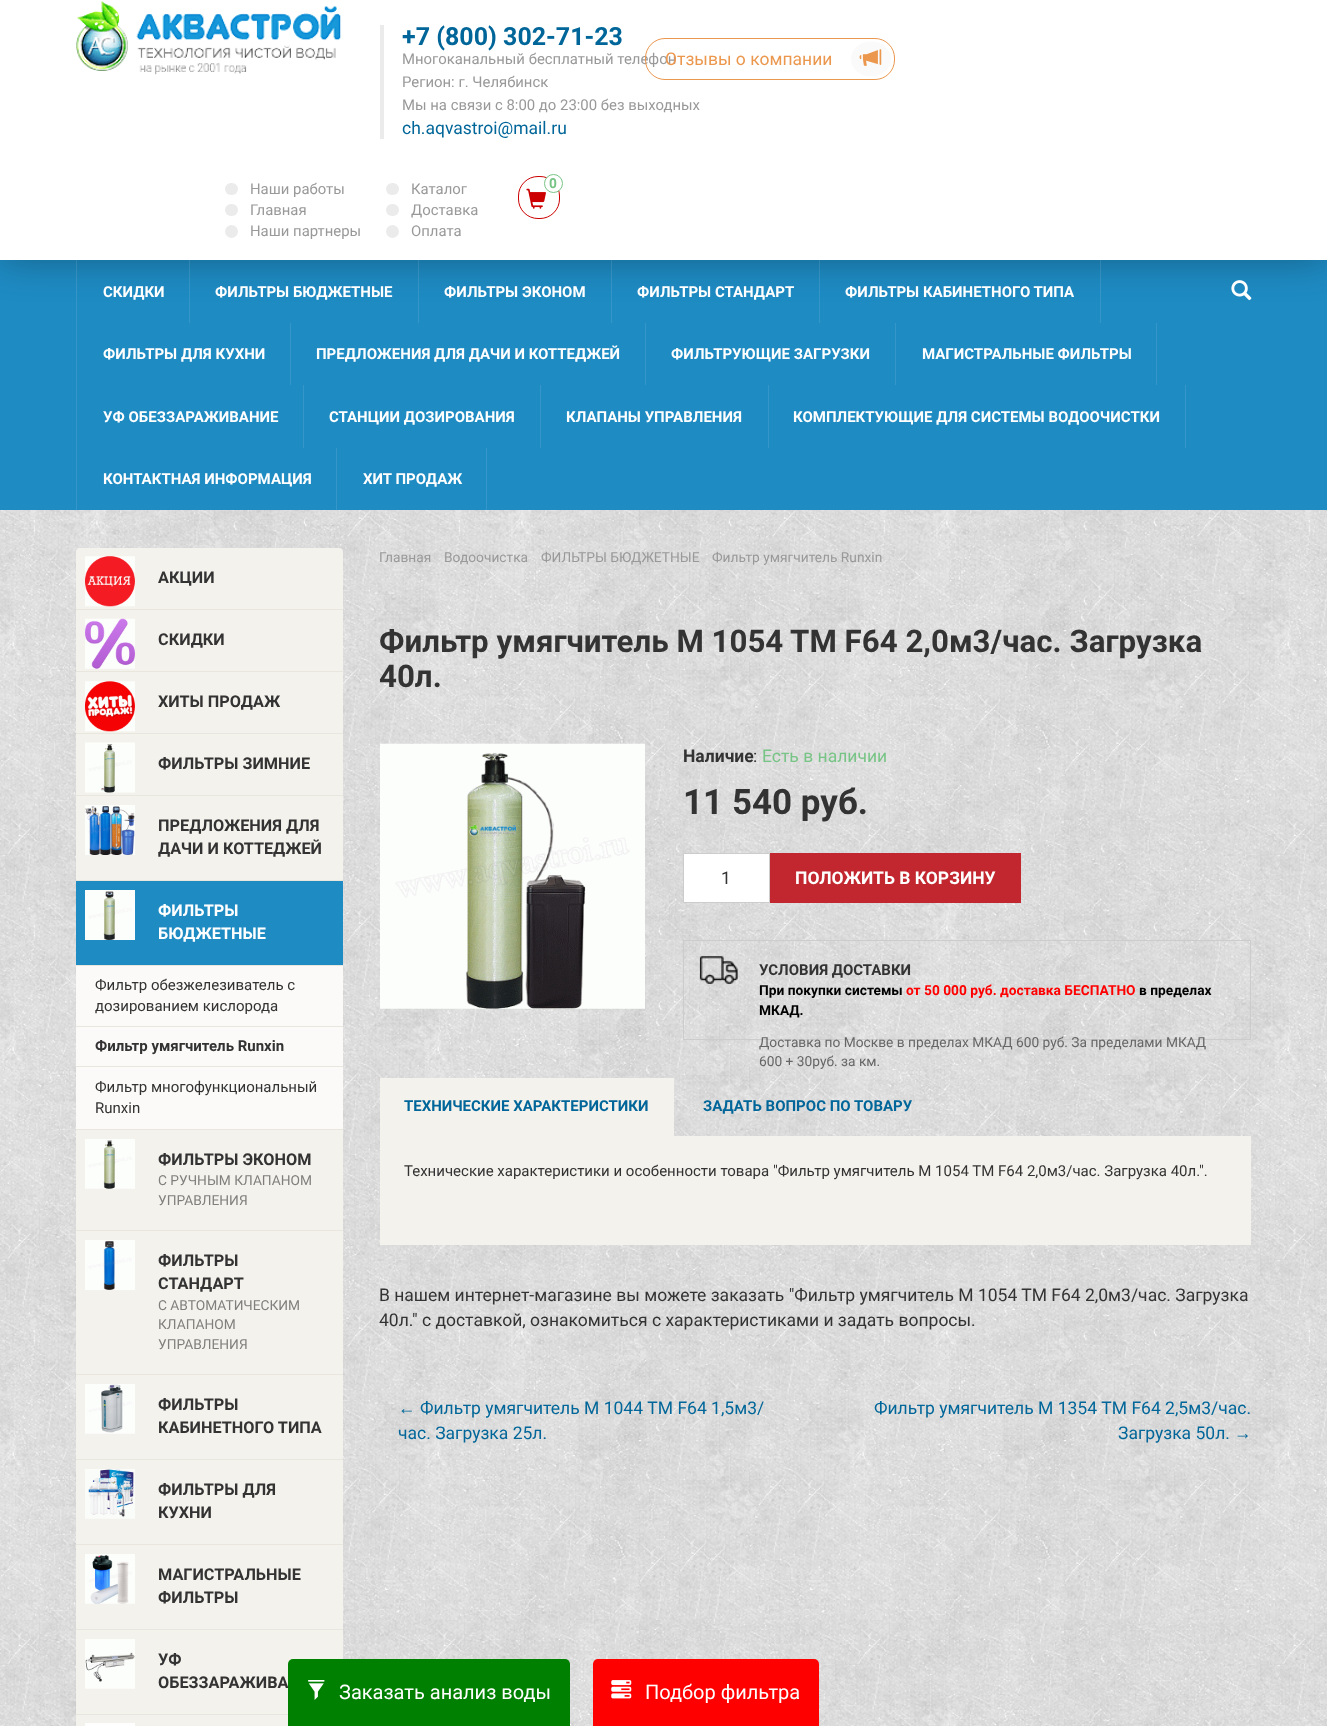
<!DOCTYPE html>
<meta charset="utf-8">
<style>body { margin: 0 } canvas { display: block }</style>
<canvas id="canvas" width="1327" height="1726"></canvas>
<script type="module">
  const canvas = document.getElementById("canvas");
  const ctx = canvas.getContext("2d");
  ctx.miterLimit = 4;
  ctx.fontKerning = "normal";
  async function loadImage(src) {
    const img = new Image();
    img.src = src;
    await img.decode();
    return img;
  }

  ctx.fillStyle = "#ffffff";
  ctx.fillRect(0, 0, 1327, 1726);
  ctx.drawImage(await loadImage("img1.png"), 0, 510, 1327, 1216);
  ctx.fillStyle = "#1e8bc3";
  ctx.fillRect(0, 260, 1327, 250);
  ctx.fillStyle = "rgba(0, 0, 0, 0.3)";
  ctx.filter = "blur(19px)";
  ctx.beginPath();
  ctx.rect(0, 0, 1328, 260);
  ctx.fill();
  ctx.filter = "none";
  ctx.fillStyle = "#ffffff";
  ctx.fillRect(0, 0, 1327, 260);
  ctx.drawImage(await loadImage("img2.png"), 76, 1, 266, 74);
  ctx.fillStyle = "#ebebeb";
  ctx.fillRect(380, 25, 4, 114);
  ctx.font = "bold 25px Roboto";
  ctx.fillStyle = "#006699";
  ctx.fillText("+7 (800) 302-71-23", 402, 45);
  ctx.font = "14.9px Roboto";
  ctx.fillStyle = "#999999";
  ctx.fillText("Многоканальный бесплатный телефон", 402, 64);
  ctx.fillText("Регион: г. Челябинск", 402, 87);
  ctx.fillText("Мы на связи с 8:00 до 23:00 без выходных", 402, 110);
  ctx.font = "17.5px Roboto";
  ctx.fillStyle = "#006699";
  ctx.fillText("ch.aqvastroi@mail.ru", 402, 134);
  ctx.fillStyle = "#ebebeb";
  ctx.beginPath();
  ctx.roundRect(225, 183, 13, 12, 6);
  ctx.fill();
  ctx.font = "14.9px Roboto";
  ctx.fillStyle = "#999999";
  ctx.fillText("Наши работы", 250, 194);
  ctx.fillStyle = "#ebebeb";
  ctx.beginPath();
  ctx.roundRect(225, 204, 13, 12, 6);
  ctx.fill();
  ctx.fillStyle = "#999999";
  ctx.fillText("Главная", 250, 215);
  ctx.fillStyle = "#ebebeb";
  ctx.beginPath();
  ctx.arc(231.5, 231.5, 6.5, 0, Math.PI * 2);
  ctx.fill();
  ctx.fillStyle = "#999999";
  ctx.fillText("Наши партнеры", 250, 236);
  ctx.fillStyle = "#ebebeb";
  ctx.beginPath();
  ctx.roundRect(386, 183, 13, 12, 6);
  ctx.fill();
  ctx.fillStyle = "#999999";
  ctx.fillText("Каталог", 411, 194);
  ctx.fillStyle = "#ebebeb";
  ctx.beginPath();
  ctx.roundRect(386, 204, 13, 12, 6);
  ctx.fill();
  ctx.fillStyle = "#999999";
  ctx.fillText("Доставка", 411, 215);
  ctx.fillStyle = "#ebebeb";
  ctx.beginPath();
  ctx.arc(392.5, 231.5, 6.5, 0, Math.PI * 2);
  ctx.fill();
  ctx.fillStyle = "#999999";
  ctx.fillText("Оплата", 411, 236);
  ctx.beginPath();
  ctx.roundRect(518.5, 176.5, 41, 42, 19.5);
  ctx.strokeStyle = "#cc0000";
  ctx.stroke();
  ctx.drawImage(await loadImage("img3.png"), 526, 188, 20, 21);
  ctx.fillStyle = "#ffffff";
  ctx.beginPath();
  ctx.arc(553.5, 183.5, 9, 0, Math.PI * 2);
  ctx.fill();
  ctx.strokeStyle = "#78c486";
  ctx.stroke();
  ctx.font = "bold 13.75px Roboto";
  ctx.fillStyle = "#78c486";
  ctx.fillText("0", 549, 188);
  ctx.beginPath();
  ctx.roundRect(645.5, 38.5, 249, 41, 19.5);
  ctx.strokeStyle = "#eb974e";
  ctx.stroke();
  ctx.font = "17.5px Roboto";
  ctx.fillStyle = "#eb974e";
  ctx.fillText("Отзывы о компании", 665, 65);
  ctx.fillStyle = "#fafafa";
  ctx.beginPath();
  ctx.ellipse(871, 59, 20, 17.5, 0, 0, Math.PI * 2);
  ctx.fill();
  ctx.drawImage(await loadImage("img4.png"), 859, 49, 23, 17);
  ctx.fillStyle = "rgba(255, 255, 255, 0.1)";
  ctx.fillRect(76, 260, 1, 250);
  ctx.fillRect(189, 260, 1, 63);
  ctx.font = "bold 15px Roboto";
  ctx.fillStyle = "#ffffff";
  ctx.fillText("СКИДКИ", 103, 297);
  ctx.fillStyle = "rgba(255, 255, 255, 0.1)";
  ctx.fillRect(418, 260, 1, 63);
  ctx.fillStyle = "#ffffff";
  ctx.fillText("ФИЛЬТРЫ БЮДЖЕТНЫЕ", 215, 297);
  ctx.fillStyle = "rgba(255, 255, 255, 0.1)";
  ctx.fillRect(611, 260, 1, 63);
  ctx.fillStyle = "#ffffff";
  ctx.fillText("ФИЛЬТРЫ ЭКОНОМ", 444, 297);
  ctx.fillStyle = "rgba(255, 255, 255, 0.1)";
  ctx.fillRect(819, 260, 1, 63);
  ctx.fillStyle = "#ffffff";
  ctx.fillText("ФИЛЬТРЫ СТАНДАРТ", 637, 297);
  ctx.fillStyle = "rgba(255, 255, 255, 0.1)";
  ctx.fillRect(1100, 260, 1, 63);
  ctx.fillStyle = "#ffffff";
  ctx.fillText("ФИЛЬТРЫ КАБИНЕТНОГО ТИПА", 845, 297);
  ctx.fillStyle = "#3597c9";
  ctx.fillRect(290, 323, 1, 62);
  ctx.fillStyle = "#ffffff";
  ctx.fillText("ФИЛЬТРЫ ДЛЯ КУХНИ", 103, 359);
  ctx.fillStyle = "#3597c9";
  ctx.fillRect(645, 323, 1, 62);
  ctx.fillStyle = "#ffffff";
  ctx.fillText("ПРЕДЛОЖЕНИЯ ДЛЯ ДАЧИ И КОТТЕДЖЕЙ", 316, 359);
  ctx.fillStyle = "#3597c9";
  ctx.fillRect(895, 323, 1, 62);
  ctx.fillStyle = "#ffffff";
  ctx.fillText("ФИЛЬТРУЮЩИЕ ЗАГРУЗКИ", 671, 359);
  ctx.fillStyle = "#3597c9";
  ctx.fillRect(1156, 323, 1, 62);
  ctx.fillStyle = "#ffffff";
  ctx.fillText("МАГИСТРАЛЬНЫЕ ФИЛЬТРЫ", 922, 359);
  ctx.fillStyle = "#3597c9";
  ctx.fillRect(303, 385, 1, 63);
  ctx.fillStyle = "#ffffff";
  ctx.fillText("УФ ОБЕЗЗАРАЖИВАНИЕ", 103, 422);
  ctx.fillStyle = "#3597c9";
  ctx.fillRect(540, 385, 1, 63);
  ctx.fillStyle = "#ffffff";
  ctx.fillText("СТАНЦИИ ДОЗИРОВАНИЯ", 329, 422);
  ctx.fillStyle = "#3597c9";
  ctx.fillRect(768, 385, 1, 63);
  ctx.fillStyle = "#ffffff";
  ctx.fillText("КЛАПАНЫ УПРАВЛЕНИЯ", 566, 422);
  ctx.fillStyle = "#3597c9";
  ctx.fillRect(1185, 385, 1, 63);
  ctx.fillStyle = "#ffffff";
  ctx.fillText("КОМПЛЕКТУЮЩИЕ ДЛЯ СИСТЕМЫ ВОДООЧИСТКИ", 793, 422);
  ctx.fillStyle = "#3597c9";
  ctx.fillRect(336, 448, 1, 62);
  ctx.fillStyle = "#ffffff";
  ctx.fillText("КОНТАКТНАЯ ИНФОРМАЦИЯ", 103, 484);
  ctx.fillStyle = "#3597c9";
  ctx.fillRect(486, 448, 1, 62);
  ctx.fillStyle = "#ffffff";
  ctx.fillText("ХИТ ПРОДАЖ", 363, 484);
  ctx.drawImage(await loadImage("img5.png"), 1231, 280, 21, 21);
  ctx.fillStyle = "#f4f2ed";
  ctx.beginPath();
  ctx.roundRect(76, 548, 267, 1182, 4);
  ctx.fill();
  ctx.fillStyle = "#e9e6dd";
  ctx.fillRect(76, 609, 267, 1);
  ctx.drawImage(await loadImage("img6.png"), 85, 556, 50, 51);
  ctx.font = "bold 16.25px Roboto";
  ctx.fillStyle = "#333333";
  ctx.fillText("АКЦИИ", 158, 583);
  ctx.fillStyle = "#e9e6dd";
  ctx.fillRect(76, 671, 267, 1);
  ctx.drawImage(await loadImage("img7.png"), 85, 618, 50, 51);
  ctx.fillStyle = "#333333";
  ctx.fillText("СКИДКИ", 158, 645);
  ctx.fillStyle = "#e9e6dd";
  ctx.fillRect(76, 733, 267, 1);
  ctx.drawImage(await loadImage("img8.png"), 85, 681, 50, 51);
  ctx.fillStyle = "#333333";
  ctx.fillText("ХИТЫ ПРОДАЖ", 158, 707);
  ctx.fillStyle = "#e9e6dd";
  ctx.fillRect(76, 795, 267, 1);
  ctx.drawImage(await loadImage("img9.png"), 85, 742, 50, 51);
  ctx.fillStyle = "#333333";
  ctx.fillText("ФИЛЬТРЫ ЗИМНИЕ", 158, 769);
  ctx.fillStyle = "#e9e6dd";
  ctx.fillRect(76, 880, 267, 1);
  ctx.drawImage(await loadImage("img10.png"), 85, 805, 50, 50);
  ctx.fillStyle = "#333333";
  ctx.fillText("ПРЕДЛОЖЕНИЯ ДЛЯ", 158, 831);
  ctx.fillText("ДАЧИ И КОТТЕДЖЕЙ", 158, 854);
  ctx.fillStyle = "#1e8bc3";
  ctx.fillRect(76, 881, 267, 84);
  ctx.fillStyle = "#e9e6dd";
  ctx.fillRect(76, 965, 267, 1);
  ctx.drawImage(await loadImage("img11.png"), 85, 890, 50, 50);
  ctx.fillStyle = "#ffffff";
  ctx.fillText("ФИЛЬТРЫ", 158, 916);
  ctx.fillText("БЮДЖЕТНЫЕ", 158, 939);
  ctx.fillStyle = "#fbfaf8";
  ctx.fillRect(76, 966, 267, 163);
  ctx.fillStyle = "#e9e6dd";
  ctx.fillRect(76, 1026, 267, 1);
  ctx.font = "15px Roboto";
  ctx.fillStyle = "#333333";
  ctx.fillText("Фильтр обезжелезиватель с", 95, 990);
  ctx.fillText("дозированием кислорода", 95, 1011);
  ctx.fillStyle = "#e9e6dd";
  ctx.fillRect(76, 1066, 267, 1);
  ctx.font = "bold 15px Roboto";
  ctx.fillStyle = "#333333";
  ctx.fillText("Фильтр умягчитель Runxin", 95, 1051);
  ctx.fillStyle = "#e9e6dd";
  ctx.fillRect(76, 1129, 267, 1);
  ctx.font = "15px Roboto";
  ctx.fillStyle = "#333333";
  ctx.fillText("Фильтр многофункциональный", 95, 1092);
  ctx.fillText("Runxin", 95, 1113);
  ctx.fillStyle = "#e9e6dd";
  ctx.fillRect(76, 1230, 267, 1);
  ctx.drawImage(await loadImage("img12.png"), 85, 1139, 50, 50);
  ctx.font = "bold 16.25px Roboto";
  ctx.fillStyle = "#333333";
  ctx.fillText("ФИЛЬТРЫ ЭКОНОМ", 158, 1165);
  ctx.font = "13.75px Roboto";
  ctx.fillStyle = "#807f7d";
  ctx.fillText("С РУЧНЫМ КЛАПАНОМ", 158, 1185);
  ctx.fillText("УПРАВЛЕНИЯ", 158, 1205);
  ctx.fillStyle = "#e9e6dd";
  ctx.fillRect(76, 1374, 267, 1);
  ctx.drawImage(await loadImage("img13.png"), 85, 1240, 50, 50);
  ctx.font = "bold 16.25px Roboto";
  ctx.fillStyle = "#333333";
  ctx.fillText("ФИЛЬТРЫ", 158, 1266);
  ctx.fillText("СТАНДАРТ", 158, 1289);
  ctx.font = "13.75px Roboto";
  ctx.fillStyle = "#807f7d";
  ctx.fillText("С АВТОМАТИЧЕСКИМ", 158, 1310);
  ctx.fillText("КЛАПАНОМ", 158, 1329);
  ctx.fillText("УПРАВЛЕНИЯ", 158, 1349);
  ctx.fillStyle = "#e9e6dd";
  ctx.fillRect(76, 1459, 267, 1);
  ctx.drawImage(await loadImage("img14.png"), 85, 1384, 50, 50);
  ctx.font = "bold 16.25px Roboto";
  ctx.fillStyle = "#333333";
  ctx.fillText("ФИЛЬТРЫ", 158, 1410);
  ctx.fillText("КАБИНЕТНОГО ТИПА", 158, 1433);
  ctx.fillStyle = "#e9e6dd";
  ctx.fillRect(76, 1544, 267, 1);
  ctx.drawImage(await loadImage("img15.png"), 85, 1469, 50, 50);
  ctx.fillStyle = "#333333";
  ctx.fillText("ФИЛЬТРЫ ДЛЯ", 158, 1495);
  ctx.fillText("КУХНИ", 158, 1518);
  ctx.fillStyle = "#e9e6dd";
  ctx.fillRect(76, 1629, 267, 1);
  ctx.drawImage(await loadImage("img16.png"), 85, 1554, 50, 50);
  ctx.fillStyle = "#333333";
  ctx.fillText("МАГИСТРАЛЬНЫЕ", 158, 1580);
  ctx.fillText("ФИЛЬТРЫ", 158, 1603);
  ctx.fillStyle = "#e9e6dd";
  ctx.fillRect(76, 1714, 212, 1);
  ctx.drawImage(await loadImage("img17.png"), 85, 1639, 50, 50);
  ctx.fillStyle = "#333333";
  ctx.fillText("УФ", 158, 1665);
  ctx.fillText("ОБЕЗЗАРАЖИВА", 158, 1688);
  ctx.fillStyle = "#fefefe";
  ctx.fillRect(85, 1723, 50, 3);
  ctx.font = "13.75px Roboto";
  ctx.fillStyle = "#999999";
  ctx.fillText("Главная", 379, 562);
  ctx.fillText("Водоочистка", 444, 562);
  ctx.fillText("ФИЛЬТРЫ БЮДЖЕТНЫЕ", 541, 562);
  ctx.fillText("Фильтр умягчитель Runxin", 712, 562);
  ctx.fillStyle = "#cccccc";
  ctx.fillText(",", 1131, 562);
  ctx.font = "bold 31.25px Roboto";
  ctx.fillStyle = "#333333";
  ctx.fillText("Фильтр умягчитель M 1054 TM F64 2,0м3/час. Загрузка", 379, 652);
  ctx.fillText("40л.", 379, 687);
  ctx.drawImage(await loadImage("img18.png"), 380, 743, 265, 266);
  ctx.font = "bold 17.5px Roboto";
  ctx.fillText("Наличие", 683, 762);
  ctx.font = "17.5px Roboto";
  ctx.fillText(":", 753, 762);
  ctx.fillStyle = "#78c486";
  ctx.fillText("Есть в наличии", 762, 762);
  ctx.font = "bold 35px Roboto";
  ctx.fillStyle = "#333333";
  ctx.fillText("11 540 руб.", 683, 814);
  ctx.fillStyle = "#ffffff";
  ctx.beginPath();
  ctx.rect(683.5, 853.5, 86, 49);
  ctx.fill();
  ctx.strokeStyle = "#cccccc";
  ctx.stroke();
  ctx.font = "17.5px Roboto";
  ctx.fillStyle = "#333333";
  ctx.fillText("1", 721, 884);
  ctx.fillStyle = "#c2272f";
  ctx.fillRect(770, 853, 251, 50);
  ctx.font = "bold 17.5px Roboto";
  ctx.fillStyle = "#ffffff";
  ctx.fillText("ПОЛОЖИТЬ В КОРЗИНУ", 795, 884);
  ctx.drawImage(await loadImage("img19.png"), 699, 956, 39, 28);
  ctx.strokeRect(683.5, 940.5, 567, 99);
  ctx.font = "bold 15px Roboto";
  ctx.fillStyle = "#333333";
  ctx.fillText("УСЛОВИЯ ДОСТАВКИ", 759, 975);
  ctx.font = "bold 13.75px Roboto";
  ctx.fillStyle = "#000000";
  ctx.fillText("При покупки системы", 759, 995);
  ctx.fillStyle = "#ff0000";
  ctx.fillText("от 50 000 руб. доставка БЕСПАТНО", 906, 995);
  ctx.fillStyle = "#000000";
  ctx.fillText("в пределах", 1139, 995);
  ctx.fillText("МКАД.", 759, 1015);
  ctx.font = "13.75px Roboto";
  ctx.fillStyle = "#666666";
  ctx.fillText("Доставка по Москве в пределах МКАД 600 руб. За пределами МКАД", 759, 1047);
  ctx.fillText("600 + 30руб. за км.", 759, 1066);
  ctx.fillStyle = "#f4f2ed";
  ctx.fillRect(380, 1078, 294, 58);
  ctx.font = "bold 15px Roboto";
  ctx.fillStyle = "#006699";
  ctx.fillText("ТЕХНИЧЕСКИЕ ХАРАКТЕРИСТИКИ", 404, 1111);
  ctx.fillText("ЗАДАТЬ ВОПРОС ПО ТОВАРУ", 703, 1111);
  ctx.fillStyle = "#f4f2ed";
  ctx.fillRect(380, 1136, 871, 109);
  ctx.font = "15px Roboto";
  ctx.fillStyle = "#333333";
  ctx.fillText("Технические характеристики и особенности товара \"Фильтр умягчитель M 1054 TM F64 2,0м3/час. Загрузка 40л.\".", 404, 1176);
  ctx.font = "17.5px Roboto";
  ctx.fillText("В нашем интернет-магазине вы можете заказать \"Фильтр умягчитель M 1054 TM F64 2,0м3/час. Загрузка", 379, 1301);
  ctx.fillText("40л.\" с доставкой, ознакомиться с характеристиками и задать вопросы.", 379, 1326);
  ctx.font = "17.5px Liberation Serif";
  ctx.fillStyle = "#006699";
  ctx.fillText("←", 398, 1414);
  ctx.font = "17.5px Roboto";
  ctx.fillText("Фильтр умягчитель М 1044 TM F64 1,5м3/", 420, 1414);
  ctx.fillText("час. Загрузка 25л.", 398, 1439);
  ctx.fillText("Фильтр умягчитель М 1354 TM F64 2,5м3/час.", 874, 1414);
  ctx.fillText("Загрузка 50л.", 1118, 1439);
  ctx.font = "17.5px Liberation Serif";
  ctx.fillText("→", 1234, 1439);
  ctx.fillStyle = "#008000";
  ctx.beginPath();
  ctx.roundRect(288, 1659, 282, 67, [5, 5, 0, 0]);
  ctx.fill();
  ctx.drawImage(await loadImage("img20.png"), 308, 1680, 17, 20);
  ctx.font = "20px Roboto";
  ctx.fillStyle = "#ffffff";
  ctx.fillText("Заказать анализ воды", 339, 1699);
  ctx.fillStyle = "#ff0000";
  ctx.beginPath();
  ctx.roundRect(593, 1659, 226, 67, [5, 5, 0, 0]);
  ctx.fill();
  ctx.drawImage(await loadImage("img21.png"), 611, 1680, 21, 19);
  ctx.fillStyle = "#ffffff";
  ctx.fillText("Подбор фильтра", 645, 1699);
</script>
